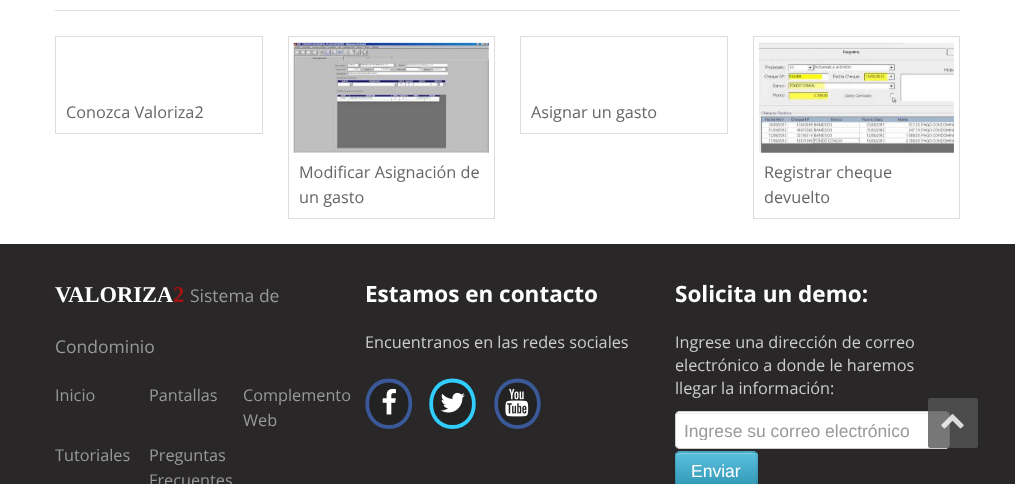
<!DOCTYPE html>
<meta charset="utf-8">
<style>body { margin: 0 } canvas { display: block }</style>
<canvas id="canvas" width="1015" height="484"></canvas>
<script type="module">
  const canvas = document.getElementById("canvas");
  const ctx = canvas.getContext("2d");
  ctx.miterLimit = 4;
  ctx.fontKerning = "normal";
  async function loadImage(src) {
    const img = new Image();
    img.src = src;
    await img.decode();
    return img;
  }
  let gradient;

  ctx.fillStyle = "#ffffff";
  ctx.fillRect(0, 0, 1015, 484);
  ctx.fillStyle = "#dddddd";
  ctx.fillRect(55, 10, 905, 1);
  ctx.strokeStyle = "#dddddd";
  ctx.strokeRect(55.5, 36.5, 207, 97);
  ctx.font = "16.25px Open Sans";
  ctx.fillStyle = "#666666";
  ctx.fillText("Conozca Valoriza2", 66, 118);
  ctx.strokeRect(520.5, 36.5, 207, 97);
  ctx.fillText("Asignar un gasto", 531, 118);
  ctx.strokeRect(288.5, 36.5, 206, 182);
  ctx.drawImage(await loadImage("img1.png"), 293, 42, 196, 111);
  ctx.fillText("Modificar Asignación de", 299, 178);
  ctx.fillText("un gasto", 299, 203);
  ctx.strokeRect(753.5, 36.5, 206, 182);
  ctx.drawImage(await loadImage("img2.png"), 758, 42, 196, 111);
  ctx.fillText("Registrar cheque", 764, 178);
  ctx.fillText("devuelto", 764, 203);
  ctx.fillStyle = "#292727";
  ctx.fillRect(0, 244, 1015, 240);
  ctx.font = "bold 22.5px Liberation Serif";
  ctx.fillStyle = "#ffffff";
  ctx.fillText("VALORIZA", 55, 302);
  ctx.fillStyle = "#a6120d";
  ctx.fillText("2", 173, 302);
  ctx.font = "17.5px Open Sans";
  ctx.fillStyle = "#999999";
  ctx.fillText("Sistema de", 190, 302);
  ctx.fillText("Condominio", 55, 353);
  ctx.font = "16.25px Open Sans";
  ctx.fillText("Inicio", 55, 401);
  ctx.fillText("Pantallas", 149, 401);
  ctx.fillText("Complemento", 243, 401);
  ctx.fillText("Web", 243, 426);
  ctx.fillText("Tutoriales", 55, 461);
  ctx.fillText("Preguntas", 149, 461);
  ctx.fillText("Frecuentes", 149, 486);
  ctx.font = "bold 22.5px Open Sans";
  ctx.fillStyle = "#ffffff";
  ctx.fillText("Estamos en contacto", 365, 302);
  ctx.font = "16.25px Open Sans";
  ctx.fillStyle = "#cccccc";
  ctx.fillText("Encuentranos en las redes sociales", 365, 348);
  ctx.fillStyle = "#222222";
  ctx.beginPath();
  ctx.ellipse(389, 404, 24, 25, 0, 0, Math.PI * 2);
  ctx.fill();
  ctx.beginPath();
  ctx.moveTo(389, 380.5);
  ctx.bezierCurveTo(417.5, 380.5, 417.5, 427, 389, 427);
  ctx.bezierCurveTo(360, 427, 360, 380.5, 389, 380.5);
  ctx.closePath();
  ctx.strokeStyle = "#3b5998";
  ctx.lineWidth = 3.8;
  ctx.stroke();
  ctx.drawImage(await loadImage("img3.png"), 382, 388, 14, 27);
  ctx.beginPath();
  ctx.ellipse(452.5, 404, 24, 25, 0, 0, Math.PI * 2);
  ctx.fill();
  ctx.beginPath();
  ctx.moveTo(452.5, 380.5);
  ctx.bezierCurveTo(481, 380.5, 481, 427, 452.5, 427);
  ctx.bezierCurveTo(424, 427, 424, 380.5, 452.5, 380.5);
  ctx.closePath();
  ctx.strokeStyle = "#31cdfd";
  ctx.stroke();
  ctx.drawImage(await loadImage("img4.png"), 440, 392, 25, 21);
  ctx.beginPath();
  ctx.ellipse(517.5, 404, 24, 25, 0, 0, Math.PI * 2);
  ctx.fill();
  ctx.beginPath();
  ctx.moveTo(517.5, 380.5);
  ctx.bezierCurveTo(546, 380.5, 546, 427, 517.5, 427);
  ctx.bezierCurveTo(489, 427, 489, 380.5, 517.5, 380.5);
  ctx.closePath();
  ctx.strokeStyle = "#3b5998";
  ctx.stroke();
  ctx.drawImage(await loadImage("img5.png"), 505, 388, 24, 29);
  ctx.font = "bold 22.5px Open Sans";
  ctx.fillStyle = "#ffffff";
  ctx.fillText("Solicita un demo:", 675, 302);
  ctx.font = "16.25px Open Sans";
  ctx.fillStyle = "#cccccc";
  ctx.fillText("Ingrese una dirección de correo", 675, 348);
  ctx.fillText("electrónico a donde le haremos", 675, 371);
  ctx.fillText("llegar la información:", 675, 394);
  ctx.fillStyle = "#ffffff";
  ctx.beginPath();
  ctx.roundRect(675, 411, 275, 38, 5);
  ctx.fill();
  ctx.fillStyle = "#ececec";
  ctx.beginPath();
  ctx.moveTo(680, 414);
  ctx.lineTo(945, 414);
  ctx.bezierCurveTo(947, 414, 949, 415, 949, 418);
  ctx.bezierCurveTo(949, 415, 948, 413, 945, 413);
  ctx.lineTo(680, 413);
  ctx.bezierCurveTo(677, 413, 676, 415, 676, 418);
  ctx.bezierCurveTo(676, 415, 678, 414, 680, 414);
  ctx.closePath();
  ctx.fill();
  ctx.beginPath();
  ctx.roundRect(675.5, 411.5, 274, 37, 4.5);
  ctx.strokeStyle = "#cccccc";
  ctx.lineWidth = 1;
  ctx.stroke();
  ctx.save();
  ctx.beginPath();
  ctx.rect(684, 420, 257, 20);
  ctx.clip();
  ctx.font = "17.5px Liberation Sans";
  ctx.fillStyle = "#999999";
  ctx.fillText("Ingrese su correo electrónico", 684, 437);
  ctx.restore();
  ctx.fillStyle = "#49afcd";
  ctx.beginPath();
  ctx.roundRect(675, 451, 83, 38, 5);
  ctx.fill();
  ctx.save();
  ctx.beginPath();
  ctx.roundRect(675, 451, 83, 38, 5);
  ctx.clip();
  gradient = ctx.createLinearGradient(716, 453, 716, 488);
  gradient.addColorStop(0, "#5bc0de");
  gradient.addColorStop(1, "#2f96b4");
  ctx.fillStyle = gradient;
  ctx.fillRect(675, 453, 83, 31);
  ctx.restore();
  ctx.fillStyle = "rgba(255, 255, 255, 0.2)";
  ctx.beginPath();
  ctx.moveTo(680, 454);
  ctx.lineTo(752, 454);
  ctx.bezierCurveTo(755, 454, 756, 455, 756, 458);
  ctx.bezierCurveTo(756, 450, 745, 453, 740, 453);
  ctx.lineTo(692, 453);
  ctx.bezierCurveTo(687, 453, 676, 450, 676, 458);
  ctx.bezierCurveTo(676, 455, 678, 454, 680, 454);
  ctx.closePath();
  ctx.fill();
  ctx.beginPath();
  ctx.moveTo(677, 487);
  ctx.bezierCurveTo(675, 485, 675.5, 481.5, 675.5, 479);
  ctx.lineTo(675.5, 470);
  ctx.bezierCurveTo(675.5, 450.5, 672.5, 452, 692, 452);
  ctx.lineTo(740.5, 452);
  ctx.bezierCurveTo(760, 452, 757, 450.5, 757, 470);
  ctx.lineTo(757, 479);
  ctx.bezierCurveTo(757, 481.5, 757.5, 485, 755.5, 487);
  ctx.strokeStyle = "rgba(0, 0, 0, 0.1)";
  ctx.lineWidth = 1.2;
  ctx.stroke();
  ctx.font = "17.5px Liberation Sans";
  ctx.fillStyle = "#ffffff";
  ctx.fillText("Enviar", 691, 477);
  ctx.fillStyle = "rgba(85, 85, 85, 0.8)";
  ctx.beginPath();
  ctx.roundRect(928, 398, 50, 50, 2.5);
  ctx.fill();
  ctx.drawImage(await loadImage("img6.png"), 941, 414, 23, 15);
</script>
